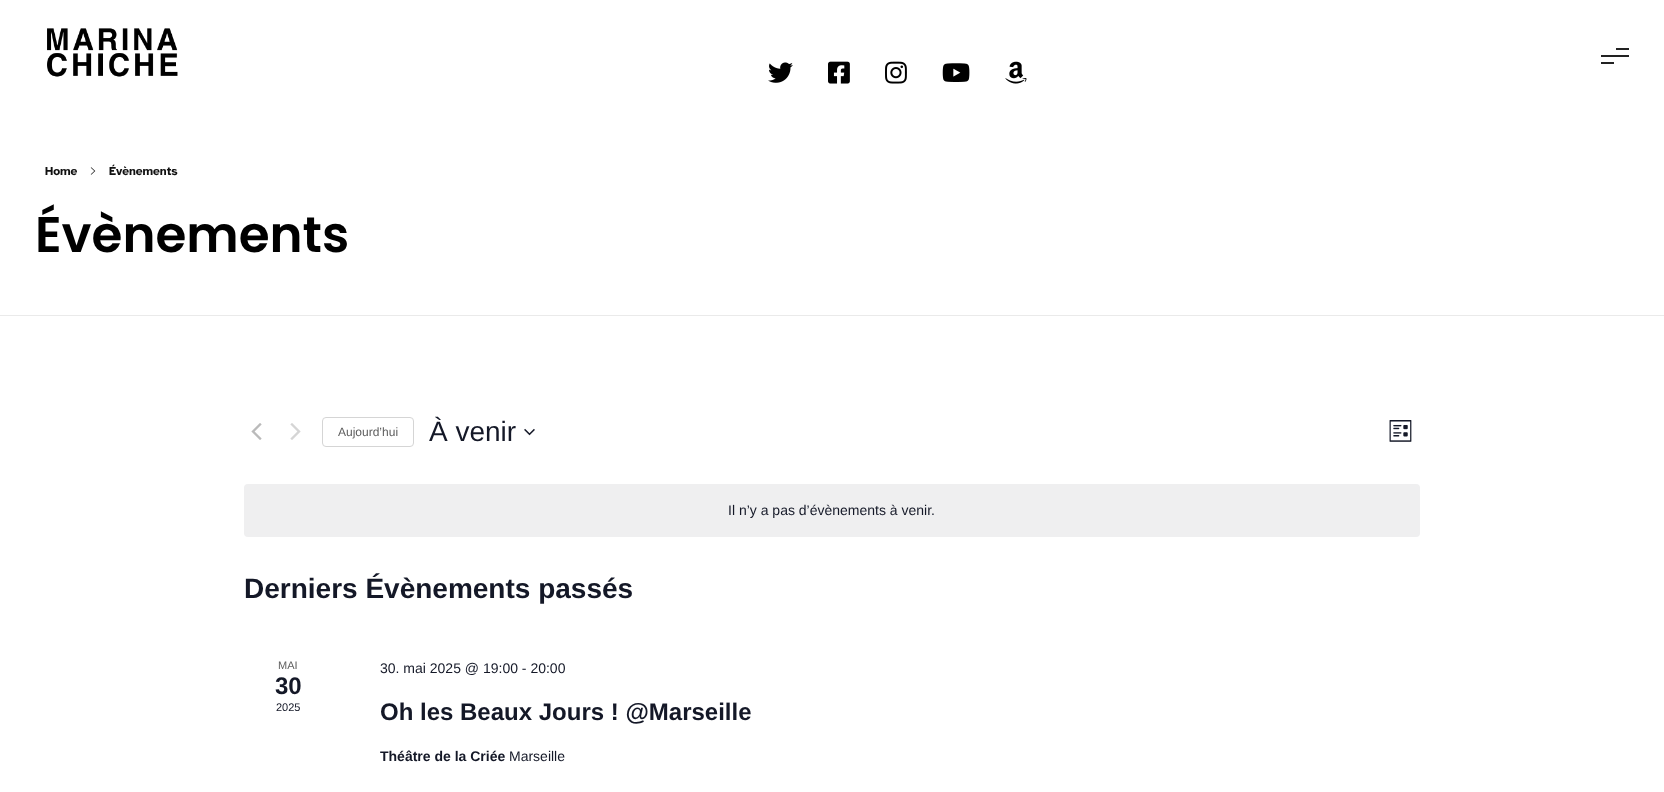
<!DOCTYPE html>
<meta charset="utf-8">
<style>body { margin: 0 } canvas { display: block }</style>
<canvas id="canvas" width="1664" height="792"></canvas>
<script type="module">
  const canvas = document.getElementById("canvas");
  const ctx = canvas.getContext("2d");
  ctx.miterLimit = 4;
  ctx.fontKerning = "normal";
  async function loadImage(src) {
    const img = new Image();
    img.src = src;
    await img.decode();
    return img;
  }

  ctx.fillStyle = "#ffffff";
  ctx.fillRect(0, 0, 1664, 792);
  ctx.drawImage(await loadImage("img1.png"), 47, 28, 131, 49);
  ctx.fillStyle = "#222222";
  ctx.fillRect(1616, 48, 13, 2);
  ctx.fillRect(1601, 55, 28, 2);
  ctx.fillRect(1601, 62, 13, 2);
  ctx.drawImage(await loadImage("img2.png"), 768, 62, 25, 21);
  ctx.drawImage(await loadImage("img3.png"), 828, 61, 22, 23);
  ctx.drawImage(await loadImage("img4.png"), 885, 61, 22, 23);
  ctx.drawImage(await loadImage("img5.png"), 942, 63, 28, 19);
  ctx.drawImage(await loadImage("img6.png"), 1005, 61, 22, 23);
  ctx.fillStyle = "#eaeaea";
  ctx.fillRect(0, 315, 1664, 1);
  ctx.font = "bold 12px Atkinson Hyperlegible";
  ctx.fillStyle = "#111111";
  ctx.fillText("Home", 45, 175);
  ctx.drawImage(await loadImage("img7.png"), 90, 167, 6, 8);
  ctx.fillText("Évènements", 109, 175);
  ctx.font = "600 50px Poppins";
  ctx.fillStyle = "#000000";
  ctx.fillText("Évènements", 35, 252);
  ctx.drawImage(await loadImage("img8.png"), 251, 423, 11, 17);
  ctx.drawImage(await loadImage("img9.png"), 290, 423, 11, 17);
  ctx.beginPath();
  ctx.roundRect(322.5, 417.5, 91, 29, 3.5);
  ctx.strokeStyle = "#d5d5d5";
  ctx.stroke();
  ctx.font = "12px Liberation Sans";
  ctx.fillStyle = "#5d5d5d";
  ctx.fillText("Aujourd’hui", 338, 436);
  ctx.font = "28px Liberation Sans";
  ctx.fillStyle = "#141827";
  ctx.fillText("À venir", 429, 441);
  ctx.drawImage(await loadImage("img10.png"), 524, 428, 11, 8);
  ctx.drawImage(await loadImage("img11.png"), 1389, 420, 23, 22);
  ctx.fillStyle = "#efeff0";
  ctx.beginPath();
  ctx.roundRect(244, 484, 1176, 53, 4);
  ctx.fill();
  ctx.font = "14px Liberation Sans";
  ctx.fillStyle = "#141827";
  ctx.fillText("Il n’y a pas d’évènements à venir.", 728, 515);
  ctx.font = "bold 28px Liberation Sans";
  ctx.fillText("Derniers Évènements passés", 244, 598);
  ctx.font = "11px Liberation Sans";
  ctx.fillStyle = "#5d5d5d";
  ctx.fillText("MAI", 278, 669);
  ctx.font = "bold 24px Liberation Sans";
  ctx.fillStyle = "#141827";
  ctx.fillText("30", 275, 694);
  ctx.font = "11px Liberation Sans";
  ctx.fillText("2025", 276, 711);
  ctx.font = "14px Liberation Sans";
  ctx.fillText("30. mai 2025 @ 19:00 - 20:00", 380, 673);
  ctx.font = "bold 24px Liberation Sans";
  ctx.fillText("Oh les Beaux Jours ! @Marseille", 380, 720);
  ctx.font = "bold 14px Liberation Sans";
  ctx.fillText("Théâtre de la Criée", 380, 761);
  ctx.font = "14px Liberation Sans";
  ctx.fillText("Marseille", 509, 761);
</script>
